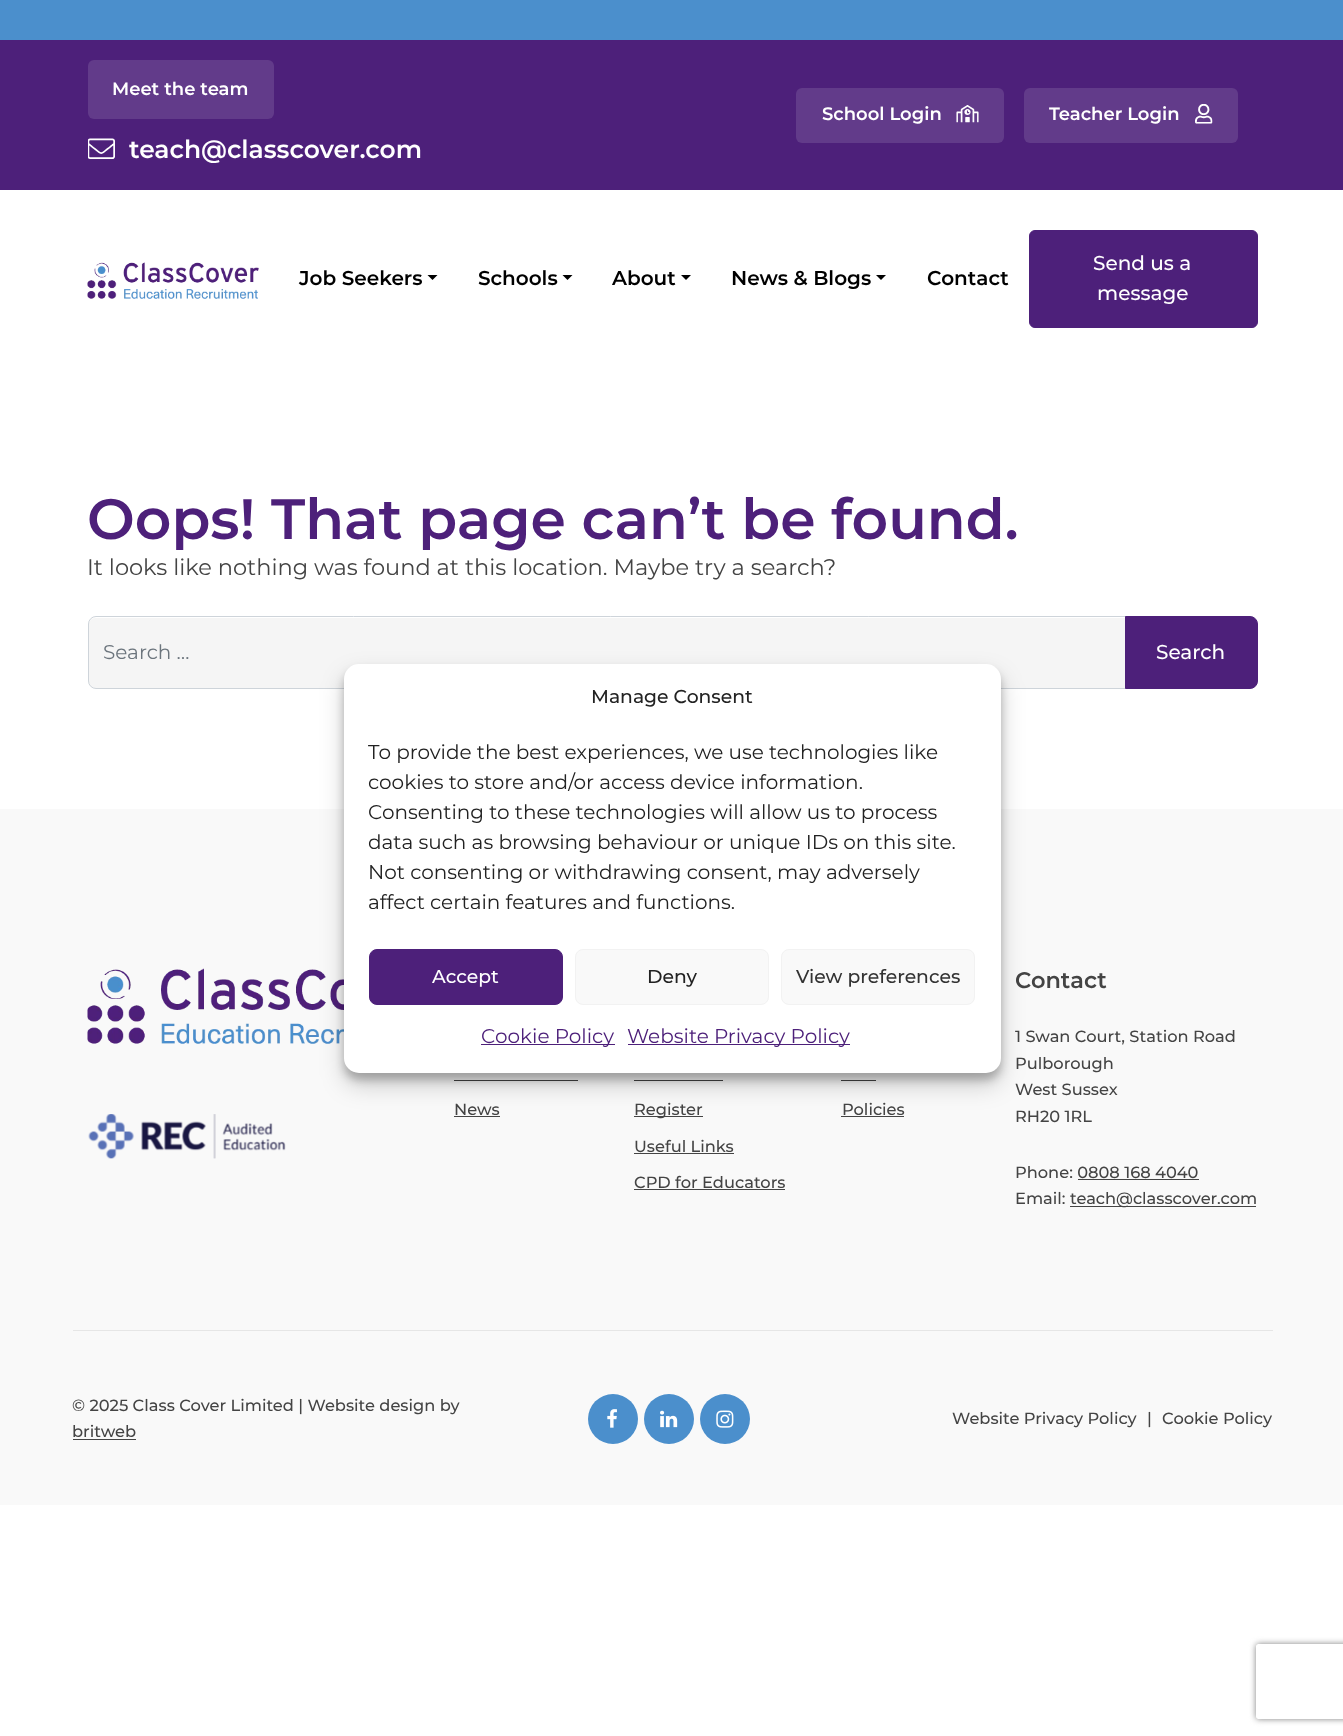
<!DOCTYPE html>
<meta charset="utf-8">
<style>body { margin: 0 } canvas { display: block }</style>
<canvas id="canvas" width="1343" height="1736"></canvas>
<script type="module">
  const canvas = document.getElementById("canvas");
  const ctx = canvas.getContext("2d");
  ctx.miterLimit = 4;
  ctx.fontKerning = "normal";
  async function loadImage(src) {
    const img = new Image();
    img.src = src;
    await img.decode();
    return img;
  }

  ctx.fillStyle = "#ffffff";
  ctx.fillRect(0, 0, 1343, 1736);
  ctx.fillStyle = "#4b8fcc";
  ctx.fillRect(0, 0, 1343, 40);
  ctx.fillStyle = "#4d207a";
  ctx.fillRect(0, 40, 1343, 150);
  ctx.fillStyle = "#623b8a";
  ctx.beginPath();
  ctx.roundRect(88, 60, 186, 59, 6);
  ctx.fill();
  ctx.font = "100 18px Montserrat";
  ctx.fillStyle = "#ffffff";
  ctx.fillText("Meet the team", 112, 95);
  ctx.drawImage(await loadImage("img1.png"), 88, 138, 27, 22);
  ctx.font = "100 25px Montserrat";
  ctx.fillText("teach@classcover.com", 129, 158);
  ctx.fillStyle = "#623b8a";
  ctx.beginPath();
  ctx.roundRect(796, 88, 208, 55, 6);
  ctx.fill();
  ctx.font = "100 18px Montserrat";
  ctx.fillStyle = "#ffffff";
  ctx.fillText("School Login", 822, 120);
  ctx.drawImage(await loadImage("img2.png"), 956, 105, 23, 18);
  ctx.fillStyle = "#623b8a";
  ctx.beginPath();
  ctx.roundRect(1024, 88, 214, 55, 6);
  ctx.fill();
  ctx.fillStyle = "#ffffff";
  ctx.fillText("Teacher Login", 1049, 120);
  ctx.drawImage(await loadImage("img3.png"), 1195, 104, 18, 20);
  ctx.drawImage(await loadImage("img4.png"), 87, 262, 172, 37);
  ctx.font = "100 20px Montserrat";
  ctx.fillStyle = "#000000";
  ctx.fillText("Job Seekers", 299, 285);
  ctx.beginPath();
  ctx.moveTo(427.5, 275);
  ctx.lineTo(437.5, 275);
  ctx.lineTo(432.5, 280);
  ctx.closePath();
  ctx.fill();
  ctx.fillText("Schools", 478, 285);
  ctx.beginPath();
  ctx.moveTo(562.5, 275);
  ctx.lineTo(572.5, 275);
  ctx.lineTo(567.5, 280);
  ctx.closePath();
  ctx.fill();
  ctx.fillText("About", 612, 285);
  ctx.beginPath();
  ctx.moveTo(681, 275);
  ctx.lineTo(691, 275);
  ctx.lineTo(686, 280);
  ctx.closePath();
  ctx.fill();
  ctx.fillText("News & Blogs", 731, 285);
  ctx.beginPath();
  ctx.moveTo(876, 275);
  ctx.lineTo(886, 275);
  ctx.lineTo(881, 280);
  ctx.closePath();
  ctx.fill();
  ctx.fillText("Contact", 927, 285);
  ctx.fillStyle = "#4d207a";
  ctx.beginPath();
  ctx.roundRect(1029.5, 230.5, 228, 97, 5.5);
  ctx.fill();
  ctx.strokeStyle = "#4d207a";
  ctx.stroke();
  ctx.font = "100 20px 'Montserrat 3'";
  ctx.fillStyle = "#ffffff";
  ctx.fillText("Send us a", 1093, 270);
  ctx.fillText("message", 1097, 300);
  ctx.font = "100 56.75px Montserrat";
  ctx.fillStyle = "#4d207a";
  ctx.fillText("Oops! That page can’t be found.", 87, 539);
  ctx.font = "100 22.5px 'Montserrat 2'";
  ctx.fillStyle = "#444444";
  ctx.fillText("It looks like nothing was found at this location. Maybe try a search?", 87, 575);
  ctx.fillStyle = "#f5f5f5";
  ctx.beginPath();
  ctx.roundRect(89, 618, 1036, 70, [6, 0, 0, 6]);
  ctx.fill();
  ctx.beginPath();
  ctx.roundRect(88.5, 616.5, 1037, 72, [7.5, 0, 0, 7.5]);
  ctx.strokeStyle = "#ced4da";
  ctx.stroke();
  ctx.font = "100 20px 'Montserrat 2'";
  ctx.fillStyle = "#6c757d";
  ctx.fillText("Search …", 103, 659);
  ctx.fillStyle = "#4d207a";
  ctx.beginPath();
  ctx.roundRect(1125.5, 616.5, 132, 72, [0, 7.5, 7.5, 0]);
  ctx.fill();
  ctx.strokeStyle = "#4d207a";
  ctx.stroke();
  ctx.font = "100 20px 'Montserrat 3'";
  ctx.fillStyle = "#ffffff";
  ctx.fillText("Search", 1156, 659);
  ctx.fillStyle = "#f9f9f9";
  ctx.fillRect(0, 809, 1343, 696);
  ctx.fillStyle = "#e6e6e6";
  ctx.fillRect(73, 1330, 1200, 1);
  ctx.drawImage(await loadImage("img5.png"), 87, 968, 257, 76);
  ctx.drawImage(await loadImage("img6.png"), 88, 1114, 198, 45);
  ctx.fillStyle = "#444444";
  ctx.fillRect(454, 1080, 124, 1);
  ctx.font = "100 16.25px 'Montserrat 3'";
  ctx.fillText("News", 454, 1115);
  ctx.fillRect(454, 1116, 46, 1);
  ctx.fillRect(634, 1080, 89, 1);
  ctx.fillRect(634, 1116, 69, 1);
  ctx.fillText("Register", 634, 1115);
  ctx.fillText("Useful Links", 634, 1152);
  ctx.fillRect(634, 1153, 100, 1);
  ctx.fillText("CPD for Educators", 634, 1188);
  ctx.fillRect(634, 1189, 151, 1);
  ctx.fillRect(841, 1080, 35, 1);
  ctx.fillText("Policies", 842, 1115);
  ctx.fillRect(841, 1116, 63, 1);
  ctx.font = "100 22.5px Montserrat";
  ctx.fillText("Contact", 1015, 988);
  ctx.font = "100 16.25px 'Montserrat 3'";
  ctx.fillText("1 Swan Court, Station Road", 1015, 1042);
  ctx.fillText("Pulborough", 1015, 1069);
  ctx.fillText("West Sussex", 1015, 1095);
  ctx.fillText("RH20 1RL", 1015, 1122);
  ctx.fillText("Phone: 0808 168 4040", 1015, 1178);
  ctx.fillRect(1078, 1179, 121, 1);
  ctx.fillText("Email:", 1015, 1204);
  ctx.fillRect(1070, 1206, 186, 1);
  ctx.fillText("teach@classcover.com", 1070, 1204);
  ctx.fillText("© 2025 Class Cover Limited | Website design by", 72, 1411);
  ctx.fillText("britweb", 72, 1437);
  ctx.fillRect(73, 1439, 63, 1);
  ctx.fillStyle = "#4b8fcc";
  ctx.beginPath();
  ctx.arc(613, 1419, 25, 0, Math.PI * 2);
  ctx.fill();
  ctx.drawImage(await loadImage("img7.png"), 607, 1409, 10, 19);
  ctx.beginPath();
  ctx.arc(669, 1419, 25, 0, Math.PI * 2);
  ctx.fill();
  ctx.drawImage(await loadImage("img8.png"), 660, 1410, 18, 18);
  ctx.beginPath();
  ctx.arc(725, 1419, 25, 0, Math.PI * 2);
  ctx.fill();
  ctx.drawImage(await loadImage("img9.png"), 716, 1410, 18, 18);
  ctx.fillStyle = "#444444";
  ctx.fillText("Website Privacy Policy", 952, 1424);
  ctx.fillText("|", 1147, 1424);
  ctx.fillText("Cookie Policy", 1162, 1424);
  ctx.fillStyle = "rgba(0, 0, 0, 0.23)";
  ctx.filter = "blur(4px)";
  ctx.beginPath();
  ctx.roundRect(344, 671, 657, 409, 15);
  ctx.fill();
  ctx.filter = "none";
  ctx.fillStyle = "rgba(0, 0, 0, 0.19)";
  ctx.filter = "blur(12.5px)";
  ctx.beginPath();
  ctx.roundRect(344, 676, 657, 409, 15);
  ctx.fill();
  ctx.filter = "none";
  ctx.fillStyle = "#ffffff";
  ctx.beginPath();
  ctx.roundRect(344, 664, 657, 409, 15);
  ctx.fill();
  ctx.font = "100 18.75px 'Montserrat 3'";
  ctx.fillStyle = "#222222";
  ctx.fillText("Manage Consent", 591, 703);
  ctx.font = "100 20px 'Montserrat 2'";
  ctx.fillText("To provide the best experiences, we use technologies like", 368, 759);
  ctx.fillText("cookies to store and/or access device information.", 368, 789);
  ctx.fillText("Consenting to these technologies will allow us to process", 368, 819);
  ctx.fillText("data such as browsing behaviour or unique IDs on this site.", 368, 849);
  ctx.fillText("Not consenting or withdrawing consent, may adversely", 368, 879);
  ctx.fillText("affect certain features and functions.", 368, 909);
  ctx.fillStyle = "#4d207a";
  ctx.beginPath();
  ctx.roundRect(369.5, 949.5, 193, 55, 7.5);
  ctx.fill();
  ctx.stroke();
  ctx.font = "100 18.75px 'Montserrat 3'";
  ctx.fillStyle = "#ffffff";
  ctx.fillText("Accept", 432, 983);
  ctx.fillStyle = "#f9f9f9";
  ctx.beginPath();
  ctx.roundRect(575.5, 949.5, 193, 55, 7.5);
  ctx.fill();
  ctx.strokeStyle = "#f2f2f2";
  ctx.stroke();
  ctx.fillStyle = "#222222";
  ctx.fillText("Deny", 647, 983);
  ctx.fillStyle = "#f9f9f9";
  ctx.beginPath();
  ctx.roundRect(781.5, 949.5, 193, 55, 7.5);
  ctx.fill();
  ctx.stroke();
  ctx.fillStyle = "#333333";
  ctx.fillText("View preferences", 796, 983);
  ctx.fillStyle = "#4d207a";
  ctx.fillRect(481, 1044, 134, 1);
  ctx.font = "100 20px 'Montserrat 2'";
  ctx.fillText("Cookie Policy", 481, 1043);
  ctx.fillRect(628, 1044, 222, 1);
  ctx.fillText("Website Privacy Policy", 627, 1043);
  ctx.save();
  ctx.beginPath();
  ctx.moveTo(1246, 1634);
  ctx.lineTo(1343, 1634);
  ctx.lineTo(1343, 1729);
  ctx.lineTo(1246, 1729);
  ctx.closePath();
  ctx.moveTo(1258.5, 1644);
  ctx.lineTo(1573.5, 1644);
  ctx.bezierCurveTo(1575, 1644, 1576, 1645, 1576, 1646.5);
  ctx.lineTo(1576, 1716.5);
  ctx.bezierCurveTo(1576, 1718, 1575, 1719, 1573.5, 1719);
  ctx.lineTo(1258.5, 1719);
  ctx.bezierCurveTo(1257, 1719, 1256, 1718, 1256, 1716.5);
  ctx.lineTo(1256, 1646.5);
  ctx.bezierCurveTo(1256, 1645, 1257, 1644, 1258.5, 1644);
  ctx.closePath();
  ctx.clip("evenodd");
  ctx.fillStyle = "#808080";
  ctx.filter = "blur(3px)";
  ctx.beginPath();
  ctx.roundRect(1256, 1644, 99, 75, 2.5);
  ctx.fill();
  ctx.filter = "none";
  ctx.restore();
</script>
